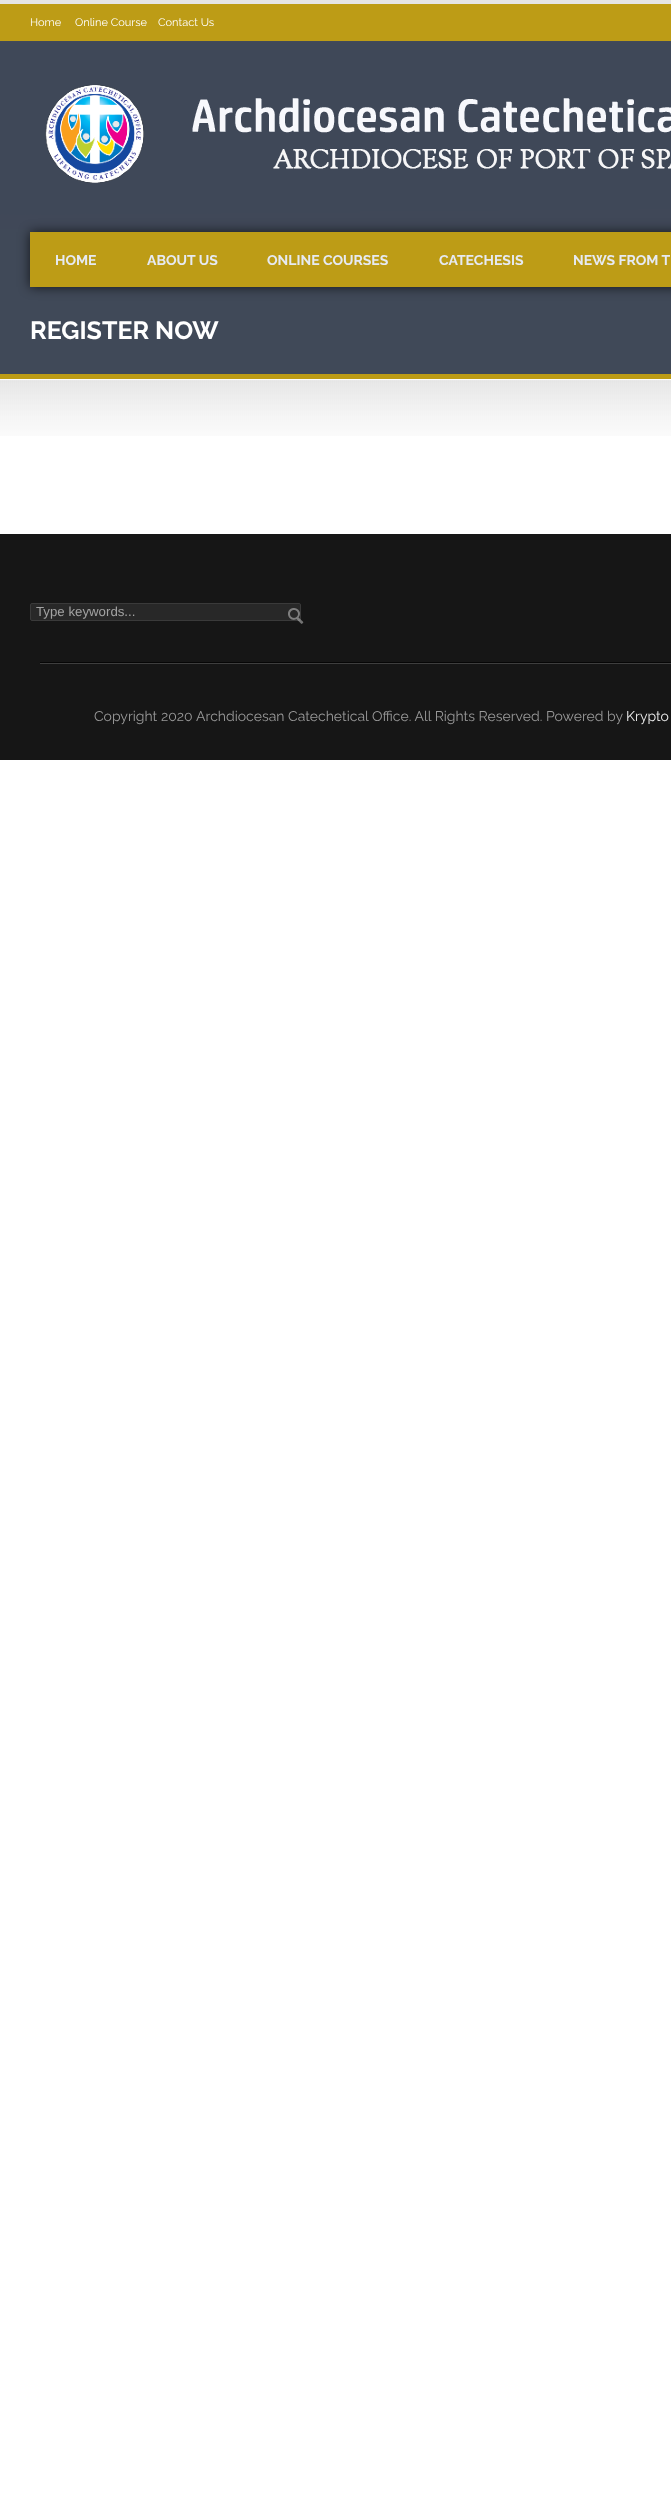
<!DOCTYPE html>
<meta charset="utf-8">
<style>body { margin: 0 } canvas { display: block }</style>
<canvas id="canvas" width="671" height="2495"></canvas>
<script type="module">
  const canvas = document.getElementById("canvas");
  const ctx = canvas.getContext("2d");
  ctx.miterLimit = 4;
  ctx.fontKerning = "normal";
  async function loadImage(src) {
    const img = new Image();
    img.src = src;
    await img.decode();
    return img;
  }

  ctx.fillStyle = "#ffffff";
  ctx.fillRect(0, 0, 671, 2495);
  ctx.fillStyle = "#595959";
  ctx.fillRect(0, 41, 671, 333);
  ctx.fillStyle = "#bd9c16";
  ctx.fillRect(0, 4, 671, 37);
  ctx.fillStyle = "#e5e5e5";
  ctx.fillRect(0, 0, 671, 4);
  ctx.font = "11px Raleway";
  ctx.fillStyle = "#ffffff";
  ctx.fillText("Home", 30, 26);
  ctx.fillText("Online Course", 75, 26);
  ctx.fillText("Contact Us", 158, 26);
  ctx.drawImage(await loadImage("img1.png"), 0, 41, 671, 333);
  ctx.drawImage(await loadImage("img2.png"), 45, 84, 626, 99);
  ctx.fillStyle = "rgba(0, 0, 0, 0.7)";
  ctx.filter = "blur(6px)";
  ctx.beginPath();
  ctx.rect(30, 232, 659, 55);
  ctx.fill();
  ctx.filter = "none";
  ctx.fillStyle = "#bd9c16";
  ctx.fillRect(30, 232, 641, 55);
  ctx.font = "bold 14px Raleway";
  ctx.fillStyle = "#e6eaf2";
  ctx.fillText("HOME", 55, 265);
  ctx.fillText("ABOUT US", 147, 265);
  ctx.fillText("ONLINE COURSES", 267, 265);
  ctx.fillText("CATECHESIS", 439, 265);
  ctx.fillText("NEWS FROM T", 573, 265);
  ctx.font = "bold 25px Raleway";
  ctx.fillStyle = "#ffffff";
  ctx.fillText("REGISTER NOW", 30, 339);
  ctx.fillStyle = "#bd9c16";
  ctx.fillRect(0, 374, 671, 5);
  ctx.drawImage(await loadImage("img3.png"), 0, 380, 671, 56);
  ctx.fillStyle = "#161616";
  ctx.fillRect(0, 534, 671, 226);
  ctx.fillStyle = "#282828";
  ctx.beginPath();
  ctx.roundRect(30.5, 603.5, 270, 17, 1.5);
  ctx.fill();
  ctx.strokeStyle = "#3a3a3a";
  ctx.stroke();
  ctx.font = "13.25px Liberation Sans";
  ctx.fillStyle = "#a3a3a3";
  ctx.fillText("Type keywords...", 36, 616);
  ctx.drawImage(await loadImage("img4.png"), 288, 608, 16, 16);
  ctx.fillStyle = "#060606";
  ctx.fillRect(40, 662, 631, 1);
  ctx.fillStyle = "#3e3e3e";
  ctx.fillRect(40, 663, 631, 1);
  ctx.font = "14px Raleway";
  ctx.fillStyle = "#999999";
  ctx.fillText("Copyright 2020", 94, 721);
  ctx.fillText("Archdiocesan Catechetical Office. All Rights Reserved. Powered by", 196, 721);
  ctx.fillStyle = "#ededed";
  ctx.fillText("Krypto", 626, 721);
</script>
